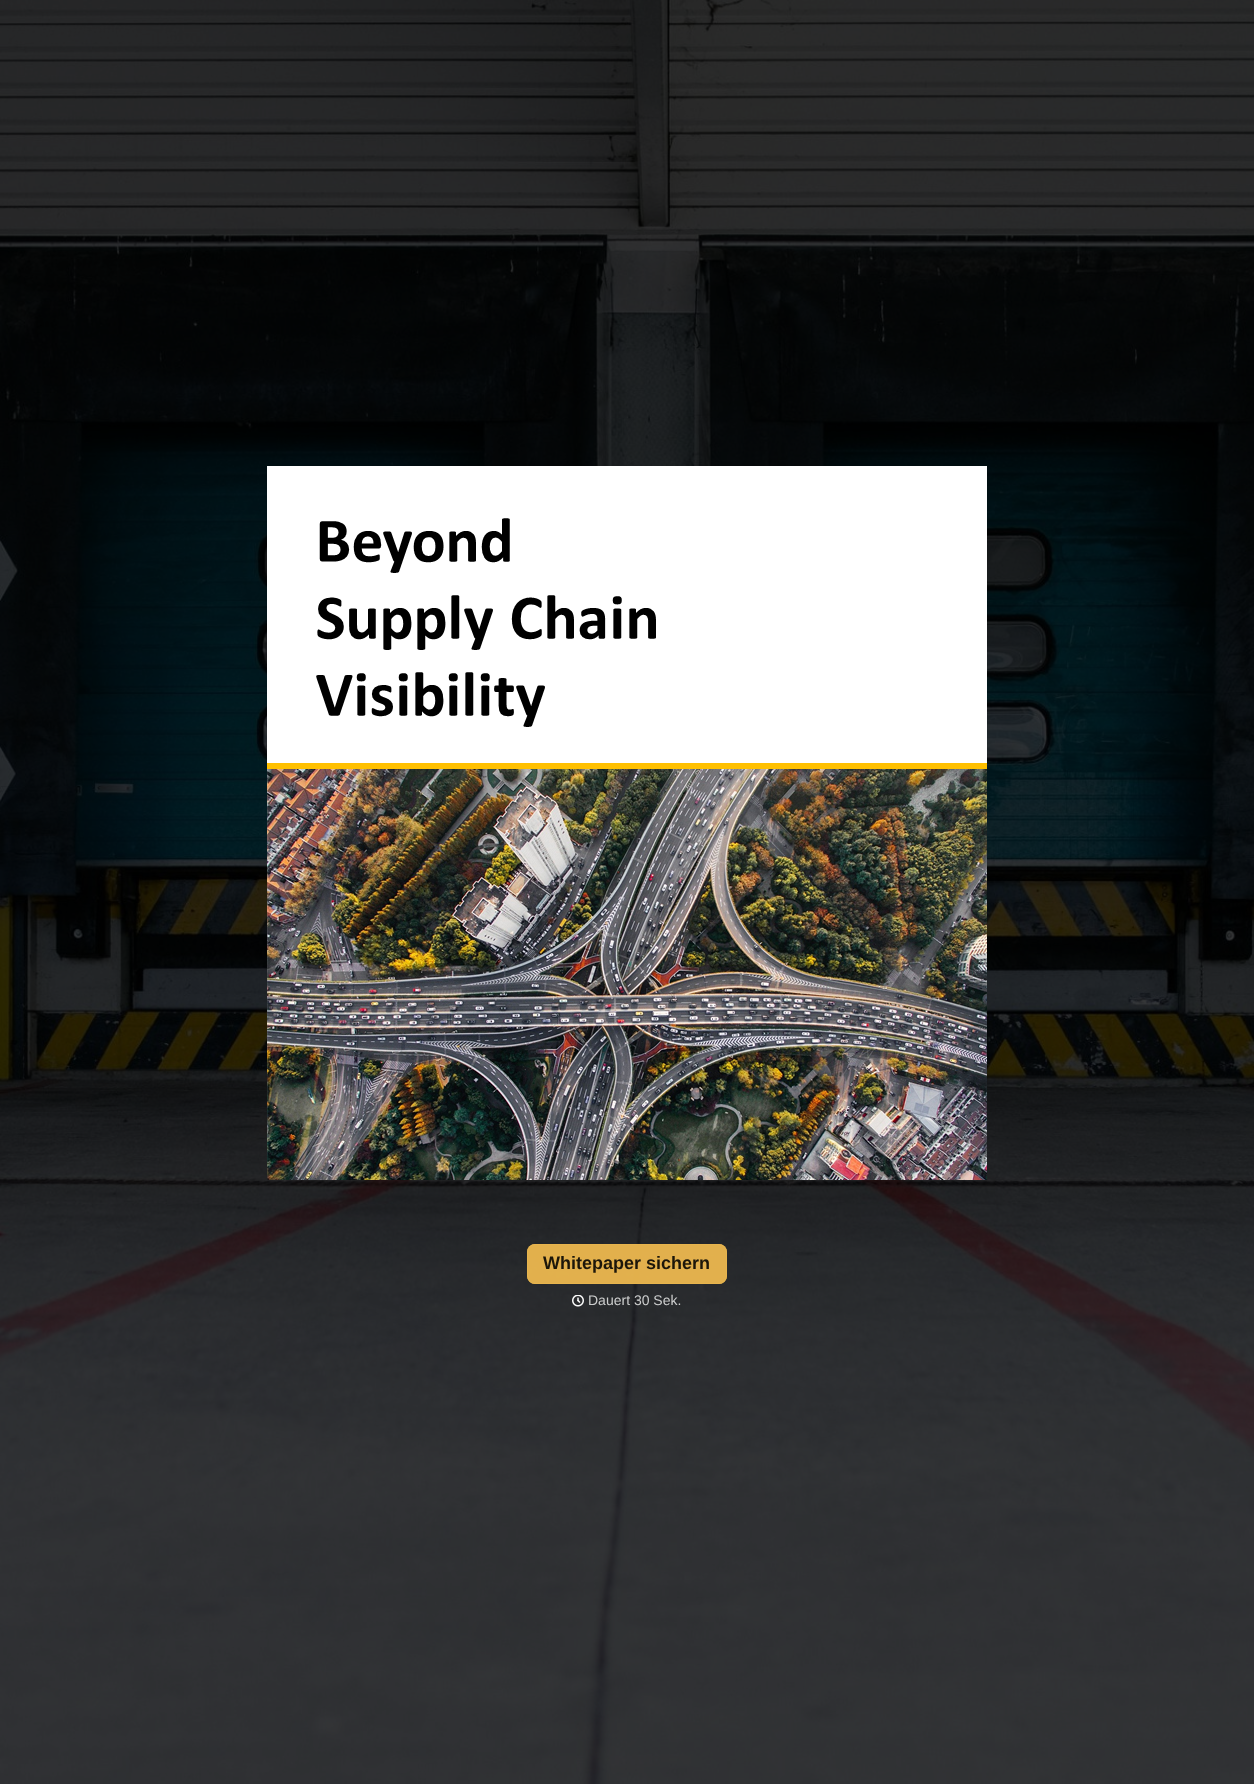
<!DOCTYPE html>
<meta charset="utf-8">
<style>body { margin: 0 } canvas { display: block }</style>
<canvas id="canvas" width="1254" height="1784"></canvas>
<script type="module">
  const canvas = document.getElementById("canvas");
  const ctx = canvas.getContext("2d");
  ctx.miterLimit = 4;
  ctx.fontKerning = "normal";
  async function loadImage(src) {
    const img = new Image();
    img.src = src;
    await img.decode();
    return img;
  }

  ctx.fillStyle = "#ffffff";
  ctx.fillRect(0, 0, 1254, 1784);
  ctx.drawImage(await loadImage("img1.png"), 0, 0, 1254, 1784);
  ctx.drawImage(await loadImage("img2.png"), 267, 466, 720, 714);
  ctx.beginPath();
  ctx.roundRect(527.5, 1244.5, 199, 39, 7.5);
  ctx.strokeStyle = "rgba(231, 180, 78, 0.98)";
  ctx.stroke();
  ctx.fillStyle = "rgba(231, 180, 78, 0.98)";
  ctx.filter = "blur(0.5px)";
  ctx.beginPath();
  ctx.roundRect(527, 1244, 200, 40, 8);
  ctx.fill();
  ctx.filter = "none";
  ctx.font = "bold 18px Liberation Sans";
  ctx.fillStyle = "#1c160a";
  ctx.fillText("Whitepaper sichern", 543, 1269);
  ctx.drawImage(await loadImage("img3.png"), 572, 1295, 12, 12);
  ctx.font = "14px Liberation Sans";
  ctx.fillStyle = "#cdcece";
  ctx.fillText("Dauert 30 Sek.", 588, 1305);
</script>
